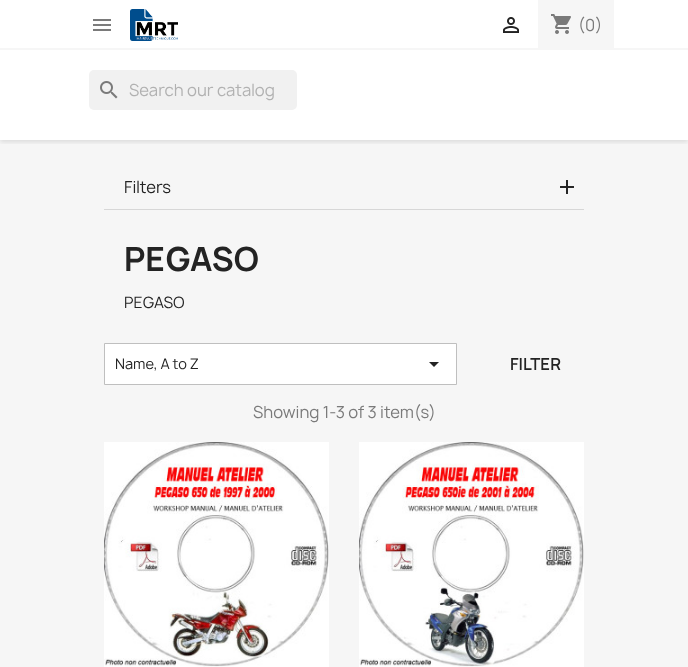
<!DOCTYPE html>
<meta charset="utf-8">
<style>body { margin: 0 } canvas { display: block }</style>
<canvas id="canvas" width="688" height="667"></canvas>
<script type="module">
  const canvas = document.getElementById("canvas");
  const ctx = canvas.getContext("2d");
  ctx.miterLimit = 4;
  ctx.fontKerning = "normal";
  async function loadImage(src) {
    const img = new Image();
    img.src = src;
    await img.decode();
    return img;
  }

  ctx.fillStyle = "#ffffff";
  ctx.fillRect(0, 0, 688, 667);
  ctx.fillStyle = "#f6f6f6";
  ctx.fillRect(0, 140, 688, 527);
  ctx.save();
  ctx.beginPath();
  ctx.rect(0, 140, 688, 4);
  ctx.clip();
  ctx.fillStyle = "rgba(0, 0, 0, 0.11)";
  ctx.filter = "blur(2.5px)";
  ctx.beginPath();
  ctx.rect(0, 2, 688, 140);
  ctx.fill();
  ctx.filter = "none";
  ctx.restore();
  ctx.fillRect(0, 48, 688, 2);
  ctx.drawImage(await loadImage("img1.png"), 93, 19, 18, 12);
  ctx.drawImage(await loadImage("img2.png"), 130, 9, 48, 32);
  ctx.drawImage(await loadImage("img3.png"), 503, 17, 16, 16);
  ctx.fillRect(538, 0, 76, 48);
  ctx.drawImage(await loadImage("img4.png"), 551, 14, 20, 20);
  ctx.font = "16px Manrope";
  ctx.fillStyle = "#7a7a7a";
  ctx.fillText("(0)", 578, 31);
  ctx.fillStyle = "#f1f1f1";
  ctx.beginPath();
  ctx.roundRect(89, 70, 208, 40, 5);
  ctx.fill();
  ctx.drawImage(await loadImage("img5.png"), 100, 81, 18, 18);
  ctx.fillStyle = "#b1b1b1";
  ctx.fillText("Search our catalog", 129, 96);
  ctx.fillStyle = "#d7d7d7";
  ctx.fillRect(104, 209, 480, 1);
  ctx.fillStyle = "#232323";
  ctx.fillText("Filters", 124, 193);
  ctx.drawImage(await loadImage("img6.png"), 560, 180, 14, 14);
  ctx.font = "bold 32px Manrope";
  ctx.fillText("PEGASO", 124, 271);
  ctx.font = "15px Manrope";
  ctx.fillText("PEGASO", 124, 308);
  ctx.fillStyle = "#ffffff";
  ctx.beginPath();
  ctx.rect(104.5, 343.5, 352, 41);
  ctx.fill();
  ctx.strokeStyle = "#bfbfbf";
  ctx.stroke();
  ctx.font = "14px Manrope";
  ctx.fillStyle = "#232323";
  ctx.fillText("Name, A to Z", 115, 369);
  ctx.beginPath();
  ctx.moveTo(429, 362);
  ctx.lineTo(439, 362);
  ctx.lineTo(434, 367);
  ctx.closePath();
  ctx.fill();
  ctx.font = "600 16px Manrope";
  ctx.fillText("FILTER", 510, 370);
  ctx.font = "16px Manrope";
  ctx.fillStyle = "#7a7a7a";
  ctx.fillText("Showing 1-3 of 3 item(s)", 253, 418);
  ctx.drawImage(await loadImage("img7.png"), 104, 442, 225, 225);
  ctx.drawImage(await loadImage("img8.png"), 359, 442, 225, 225);
</script>
